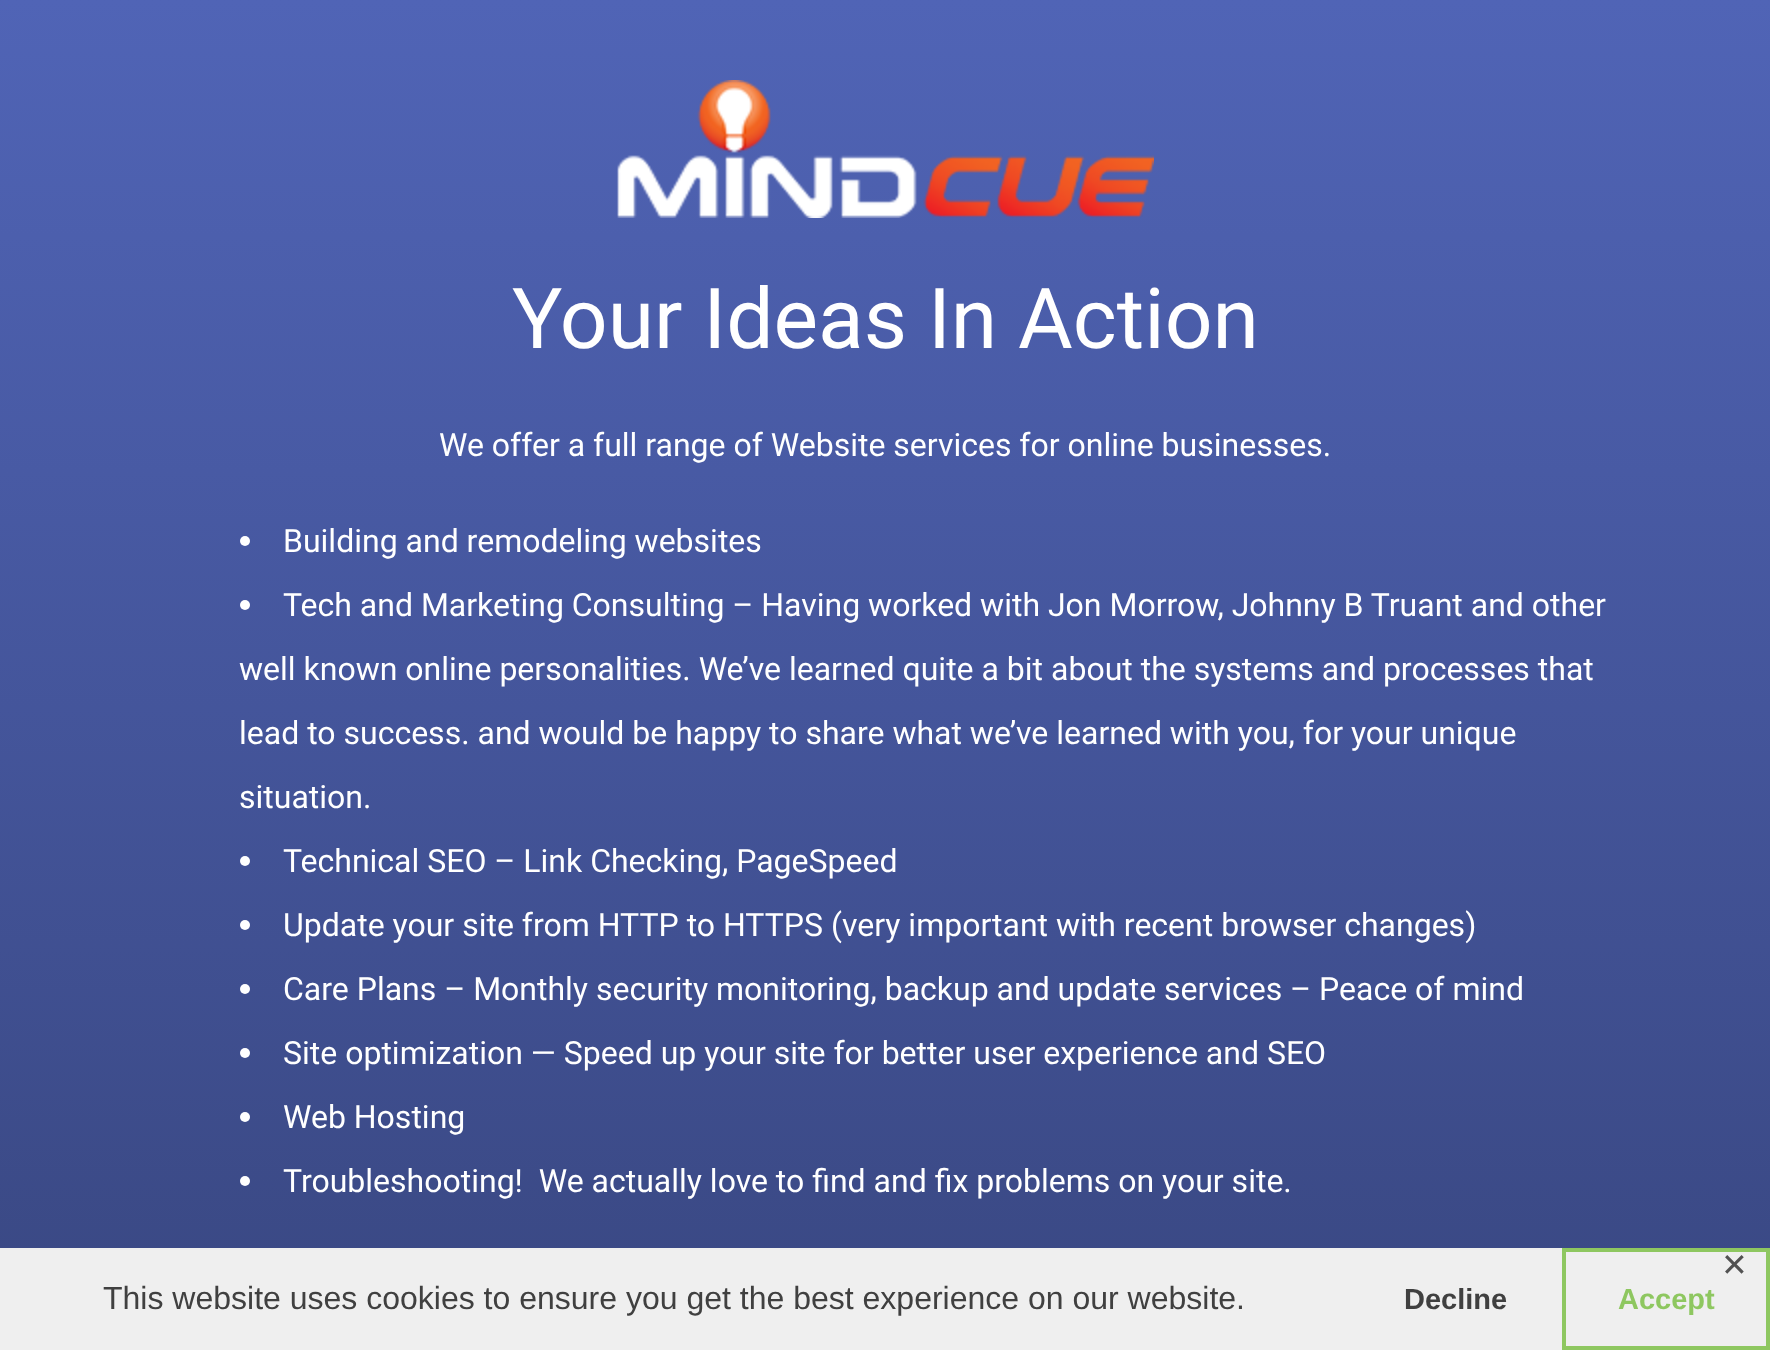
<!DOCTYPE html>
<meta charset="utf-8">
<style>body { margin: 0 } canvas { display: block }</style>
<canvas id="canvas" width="1770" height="1350"></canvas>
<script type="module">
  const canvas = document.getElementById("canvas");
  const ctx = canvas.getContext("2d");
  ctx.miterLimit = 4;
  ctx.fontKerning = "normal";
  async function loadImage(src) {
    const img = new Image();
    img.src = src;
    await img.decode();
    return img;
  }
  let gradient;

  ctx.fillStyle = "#ffffff";
  ctx.fillRect(0, 0, 1770, 1350);
  gradient = ctx.createLinearGradient(885, 0, 885, 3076);
  gradient.addColorStop(0, "#5064b6");
  gradient.addColorStop(1, "#1c2340");
  ctx.fillStyle = gradient;
  ctx.fillRect(0, 0, 1770, 1248);
  ctx.drawImage(await loadImage("img1.png"), 617, 80, 537, 138);
  ctx.font = "84px Roboto";
  ctx.fillStyle = "#ffffff";
  ctx.fillText("Your Ideas In Action", 512, 348);
  ctx.font = "32px Roboto";
  ctx.fillText("We offer a full range of Website services for online businesses.", 439, 456);
  ctx.beginPath();
  ctx.arc(245, 541, 5, 0, Math.PI * 2);
  ctx.fill();
  ctx.fillText("Building and remodeling websites", 283, 552);
  ctx.beginPath();
  ctx.arc(245, 605, 5, 0, Math.PI * 2);
  ctx.fill();
  ctx.fillText("Tech and Marketing Consulting – Having worked with Jon Morrow, Johnny B Truant and other", 283, 616);
  ctx.fillText("well known online personalities. We’ve learned quite a bit about the systems and processes that", 239, 680);
  ctx.fillText("lead to success. and would be happy to share what we’ve learned with you, for your unique", 239, 744);
  ctx.fillText("situation.", 239, 808);
  ctx.beginPath();
  ctx.arc(245, 861, 5, 0, Math.PI * 2);
  ctx.fill();
  ctx.fillText("Technical SEO – Link Checking, PageSpeed", 283, 872);
  ctx.beginPath();
  ctx.arc(245, 925, 5, 0, Math.PI * 2);
  ctx.fill();
  ctx.fillText("Update your site from HTTP to HTTPS (very important with recent browser changes)", 283, 936);
  ctx.beginPath();
  ctx.arc(245, 989, 5, 0, Math.PI * 2);
  ctx.fill();
  ctx.fillText("Care Plans – Monthly security monitoring, backup and update services – Peace of mind", 283, 1000);
  ctx.beginPath();
  ctx.arc(245, 1053, 5, 0, Math.PI * 2);
  ctx.fill();
  ctx.fillText("Site optimization — Speed up your site for better user experience and SEO", 283, 1064);
  ctx.beginPath();
  ctx.arc(245, 1117, 5, 0, Math.PI * 2);
  ctx.fill();
  ctx.fillText("Web Hosting", 283, 1128);
  ctx.beginPath();
  ctx.arc(245, 1181, 5, 0, Math.PI * 2);
  ctx.fill();
  ctx.fillText("Troubleshooting!  We actually love to find and fix problems on your site.", 283, 1192);
  ctx.fillStyle = "#efefef";
  ctx.fillRect(0, 1248, 1766, 102);
  ctx.strokeStyle = "#8ec760";
  ctx.lineWidth = 4;
  ctx.strokeRect(1564, 1250, 204, 98);
  ctx.font = "32px DejaVu Sans";
  ctx.fillStyle = "#525252";
  ctx.fillText("✕", 1721, 1276);
  ctx.font = "32px Liberation Sans";
  ctx.fillStyle = "#404040";
  ctx.fillText("This website uses cookies to ensure you get the best experience on our website.", 103, 1309);
  ctx.font = "bold 29px Liberation Sans";
  ctx.fillText("Decline", 1404, 1309);
  ctx.fillStyle = "#8ec760";
  ctx.fillText("Accept", 1618, 1309);
</script>
